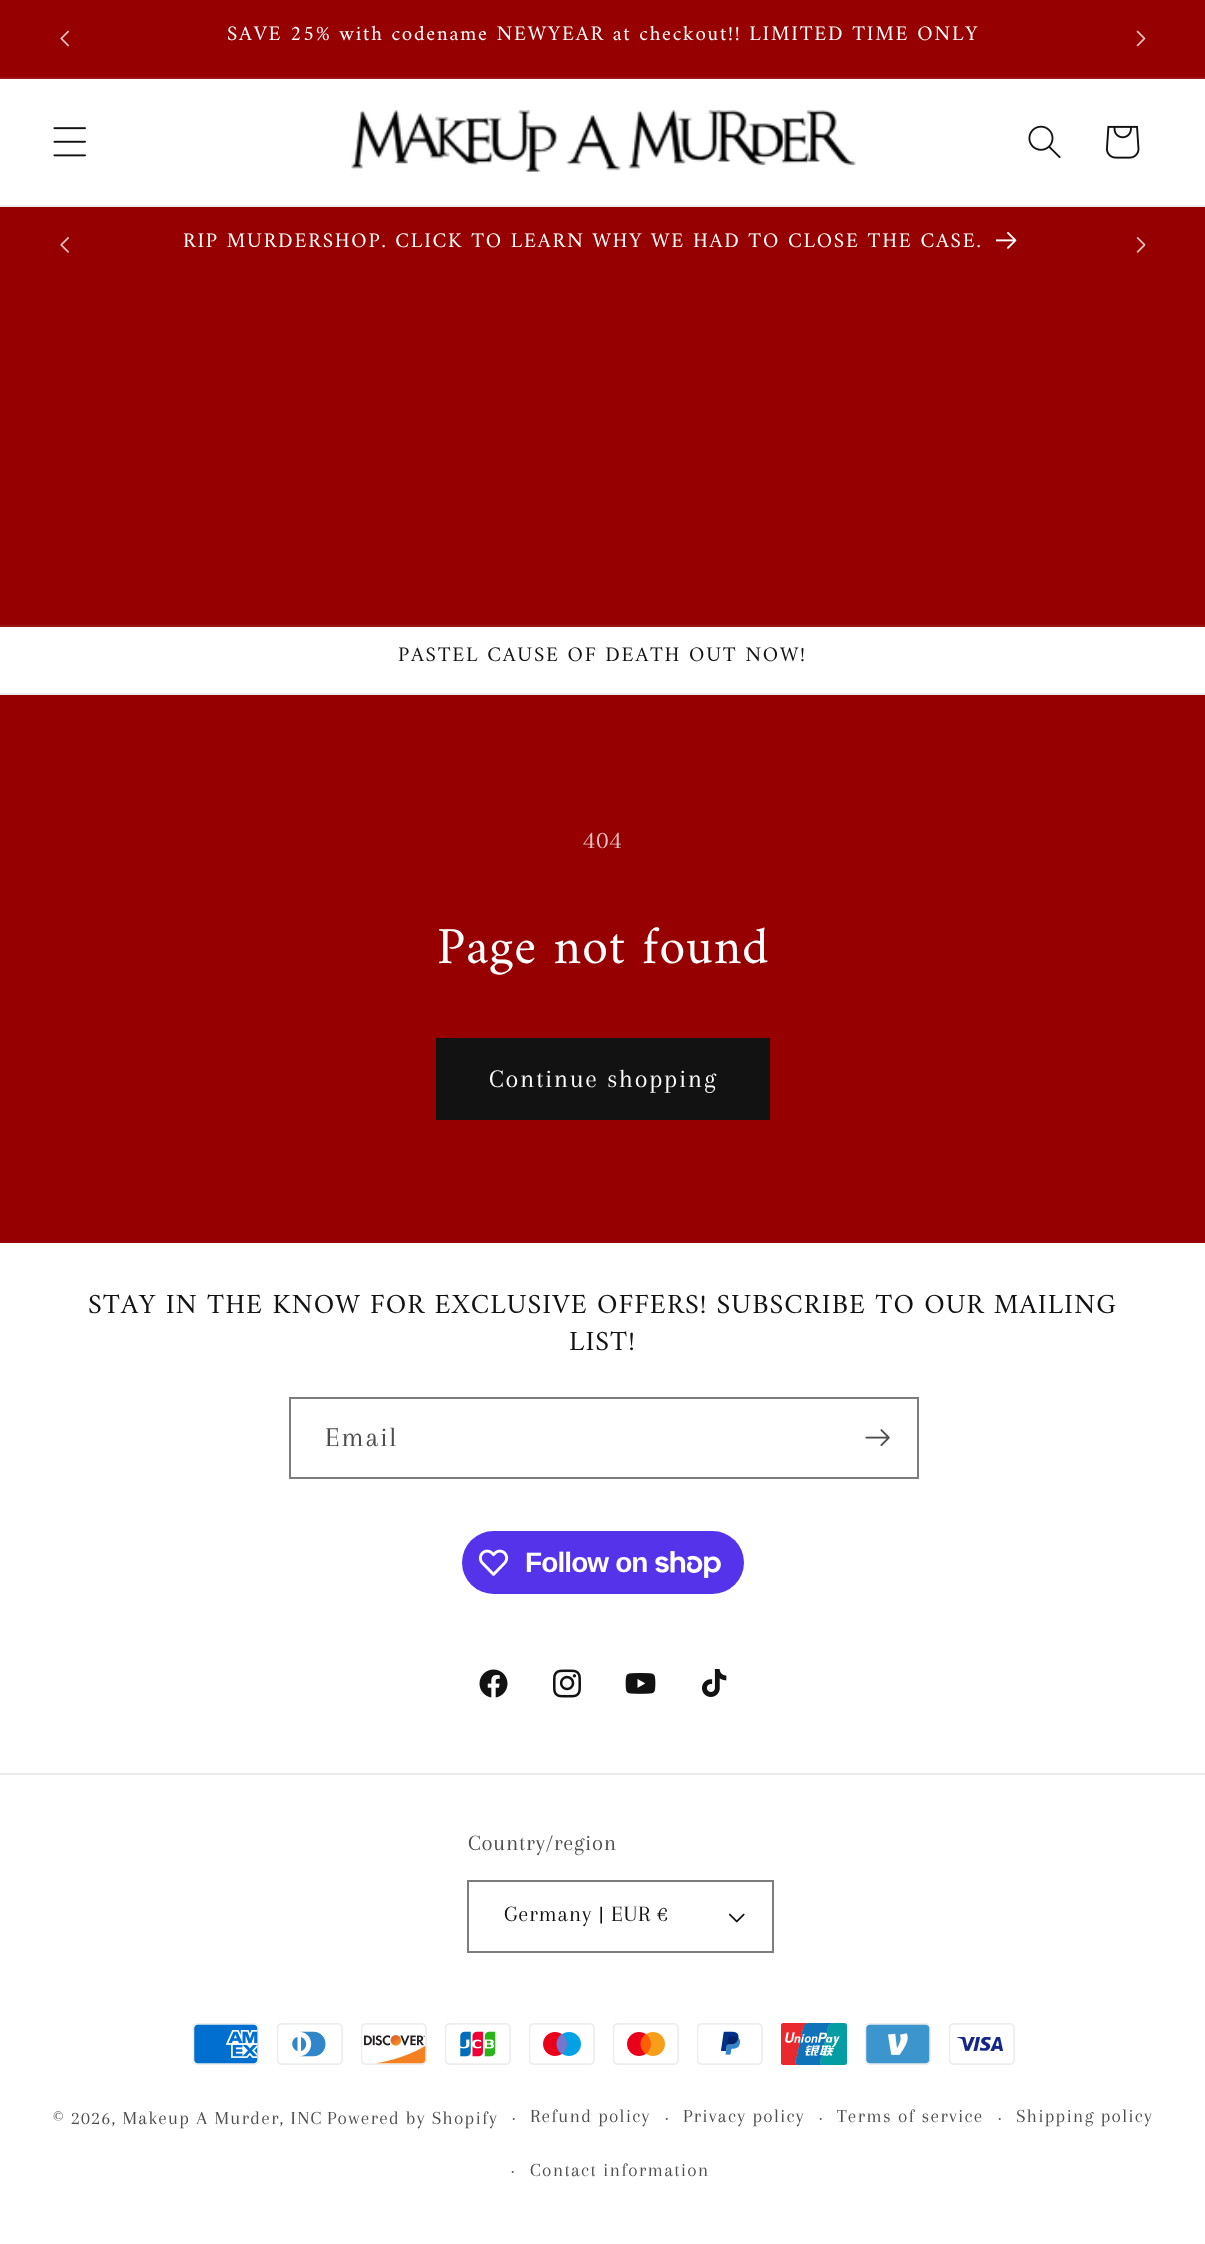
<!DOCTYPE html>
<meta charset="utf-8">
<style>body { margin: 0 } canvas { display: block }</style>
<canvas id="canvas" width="1205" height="2244"></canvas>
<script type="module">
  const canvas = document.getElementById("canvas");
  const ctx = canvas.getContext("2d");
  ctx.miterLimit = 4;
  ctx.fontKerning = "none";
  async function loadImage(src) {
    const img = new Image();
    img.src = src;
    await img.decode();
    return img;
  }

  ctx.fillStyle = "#970000";
  ctx.fillRect(0, 0, 1205, 2244);
  ctx.fillStyle = "#9f1414";
  ctx.fillRect(0, 77, 1205, 2);
  ctx.drawImage(await loadImage("img1.png"), 60, 30, 10, 17);
  ctx.letterSpacing = "1.75px";
  ctx.font = "21px Amiri";
  ctx.fillStyle = "#ffffff";
  ctx.fillText("SAVE 25% with codename NEWYEAR at checkout!! LIMITED TIME ONLY", 227, 40);
  ctx.drawImage(await loadImage("img2.png"), 1136, 30, 10, 17);
  ctx.fillRect(0, 79, 1205, 126);
  ctx.fillStyle = "#ececec";
  ctx.fillRect(0, 205, 1205, 2);
  ctx.drawImage(await loadImage("img3.png"), 53, 127, 33, 30);
  ctx.drawImage(await loadImage("img4.png"), 351, 110, 505, 62);
  ctx.drawImage(await loadImage("img5.png"), 1028, 125, 33, 34);
  ctx.drawImage(await loadImage("img6.png"), 1106, 125, 34, 34);
  ctx.fillStyle = "#9f1414";
  ctx.fillRect(0, 625, 1205, 2);
  ctx.drawImage(await loadImage("img7.png"), 60, 237, 9, 16);
  ctx.fillStyle = "#ffffff";
  ctx.fillText("RIP MURDERSHOP. CLICK TO LEARN WHY WE HAD TO CLOSE THE CASE.", 183, 247);
  ctx.drawImage(await loadImage("img8.png"), 996, 232, 21, 17);
  ctx.drawImage(await loadImage("img9.png"), 1136, 237, 10, 16);
  ctx.fillRect(0, 627, 1205, 66);
  ctx.fillStyle = "#ececec";
  ctx.fillRect(0, 693, 1205, 2);
  ctx.fillStyle = "#121212";
  ctx.fillText("PASTEL CAUSE OF DEATH OUT NOW!", 398, 661);
  ctx.letterSpacing = "1.05px";
  ctx.font = "26.25px Arapey";
  ctx.fillStyle = "#e5bfbf";
  ctx.fillText("404", 583, 848);
  ctx.font = "52.5px Amiri";
  ctx.fillStyle = "#ffffff";
  ctx.fillText("Page not found", 437, 963);
  ctx.fillStyle = "#121212";
  ctx.fillRect(436, 1038, 334, 82);
  ctx.letterSpacing = "1.75px";
  ctx.font = "26.25px Arapey";
  ctx.fillStyle = "#ffffff";
  ctx.fillText("Continue shopping", 489, 1087);
  ctx.fillRect(0, 1243, 1205, 1001);
  ctx.letterSpacing = "1.05px";
  ctx.font = "28px Amiri";
  ctx.fillStyle = "#121212";
  ctx.fillText("STAY IN THE KNOW FOR EXCLUSIVE", 88, 1313);
  ctx.fillText("OFFERS! SUBSCRIBE TO OUR MAILING", 597, 1313);
  ctx.fillText("LIST!", 569, 1350);
  ctx.strokeStyle = "#7d7d7d";
  ctx.lineWidth = 2;
  ctx.strokeRect(290, 1398, 628, 80);
  ctx.letterSpacing = "1.75px";
  ctx.font = "28px Arapey";
  ctx.fillStyle = "#4d4d4d";
  ctx.fillText("Email", 325, 1446);
  ctx.drawImage(await loadImage("img10.png"), 865, 1429, 25, 17);
  ctx.fillStyle = "#5433eb";
  ctx.beginPath();
  ctx.roundRect(462, 1531, 282, 63, 31.5);
  ctx.fill();
  ctx.drawImage(await loadImage("img11.png"), 478, 1549, 31, 27);
  ctx.letterSpacing = "-0.9px";
  ctx.font = "bold 28px Liberation Sans";
  ctx.fillStyle = "#ffffff";
  ctx.fillText("Follow on", 525, 1572);
  ctx.drawImage(await loadImage("img12.png"), 655, 1551, 66, 27);
  ctx.drawImage(await loadImage("img13.png"), 479, 1669, 29, 29);
  ctx.drawImage(await loadImage("img14.png"), 553, 1669, 28, 29);
  ctx.drawImage(await loadImage("img15.png"), 625, 1673, 31, 21);
  ctx.drawImage(await loadImage("img16.png"), 702, 1669, 25, 28);
  ctx.fillStyle = "#ececec";
  ctx.fillRect(0, 1773, 1205, 2);
  ctx.letterSpacing = "0.75px";
  ctx.font = "22.75px Arapey";
  ctx.fillStyle = "#4d4d4d";
  ctx.fillText("Country/region", 468, 1850);
  ctx.drawImage(await loadImage("img17.png"), 728, 1913, 17, 10);
  ctx.strokeRect(468, 1881, 305, 71);
  ctx.fillStyle = "#121212";
  ctx.fillText("Germany | EUR €", 504, 1921);
  ctx.drawImage(await loadImage("img18.png"), 193, 2023, 66, 42);
  ctx.drawImage(await loadImage("img19.png"), 277, 2023, 66, 42);
  ctx.drawImage(await loadImage("img20.png"), 361, 2023, 66, 42);
  ctx.drawImage(await loadImage("img21.png"), 445, 2023, 66, 42);
  ctx.drawImage(await loadImage("img22.png"), 529, 2023, 66, 42);
  ctx.drawImage(await loadImage("img23.png"), 613, 2023, 66, 42);
  ctx.drawImage(await loadImage("img24.png"), 697, 2023, 66, 42);
  ctx.drawImage(await loadImage("img25.png"), 781, 2023, 66, 42);
  ctx.drawImage(await loadImage("img26.png"), 865, 2023, 66, 42);
  ctx.drawImage(await loadImage("img27.png"), 949, 2023, 66, 42);
  ctx.letterSpacing = "1.25px";
  ctx.font = "19.25px Arapey";
  ctx.fillStyle = "#4d4d4d";
  ctx.fillText("© 2026, Makeup A Murder, INC", 53, 2124);
  ctx.fillText("Powered by Shopify", 327, 2124);
  ctx.font = "18px Arapey";
  ctx.fillText("·", 512, 2124);
  ctx.font = "19.25px Arapey";
  ctx.fillText("Refund policy", 530, 2122);
  ctx.font = "18px Arapey";
  ctx.fillText("·", 665, 2124);
  ctx.font = "19.25px Arapey";
  ctx.fillText("Privacy policy", 683, 2122);
  ctx.font = "18px Arapey";
  ctx.fillText("·", 819, 2124);
  ctx.font = "19.25px Arapey";
  ctx.fillText("Terms of service", 837, 2122);
  ctx.font = "18px Arapey";
  ctx.fillText("·", 998, 2124);
  ctx.font = "19.25px Arapey";
  ctx.fillText("Shipping policy", 1016, 2122);
  ctx.font = "18px Arapey";
  ctx.fillText("·", 511, 2177);
  ctx.font = "19.25px Arapey";
  ctx.fillText("Contact information", 530, 2176);
</script>
